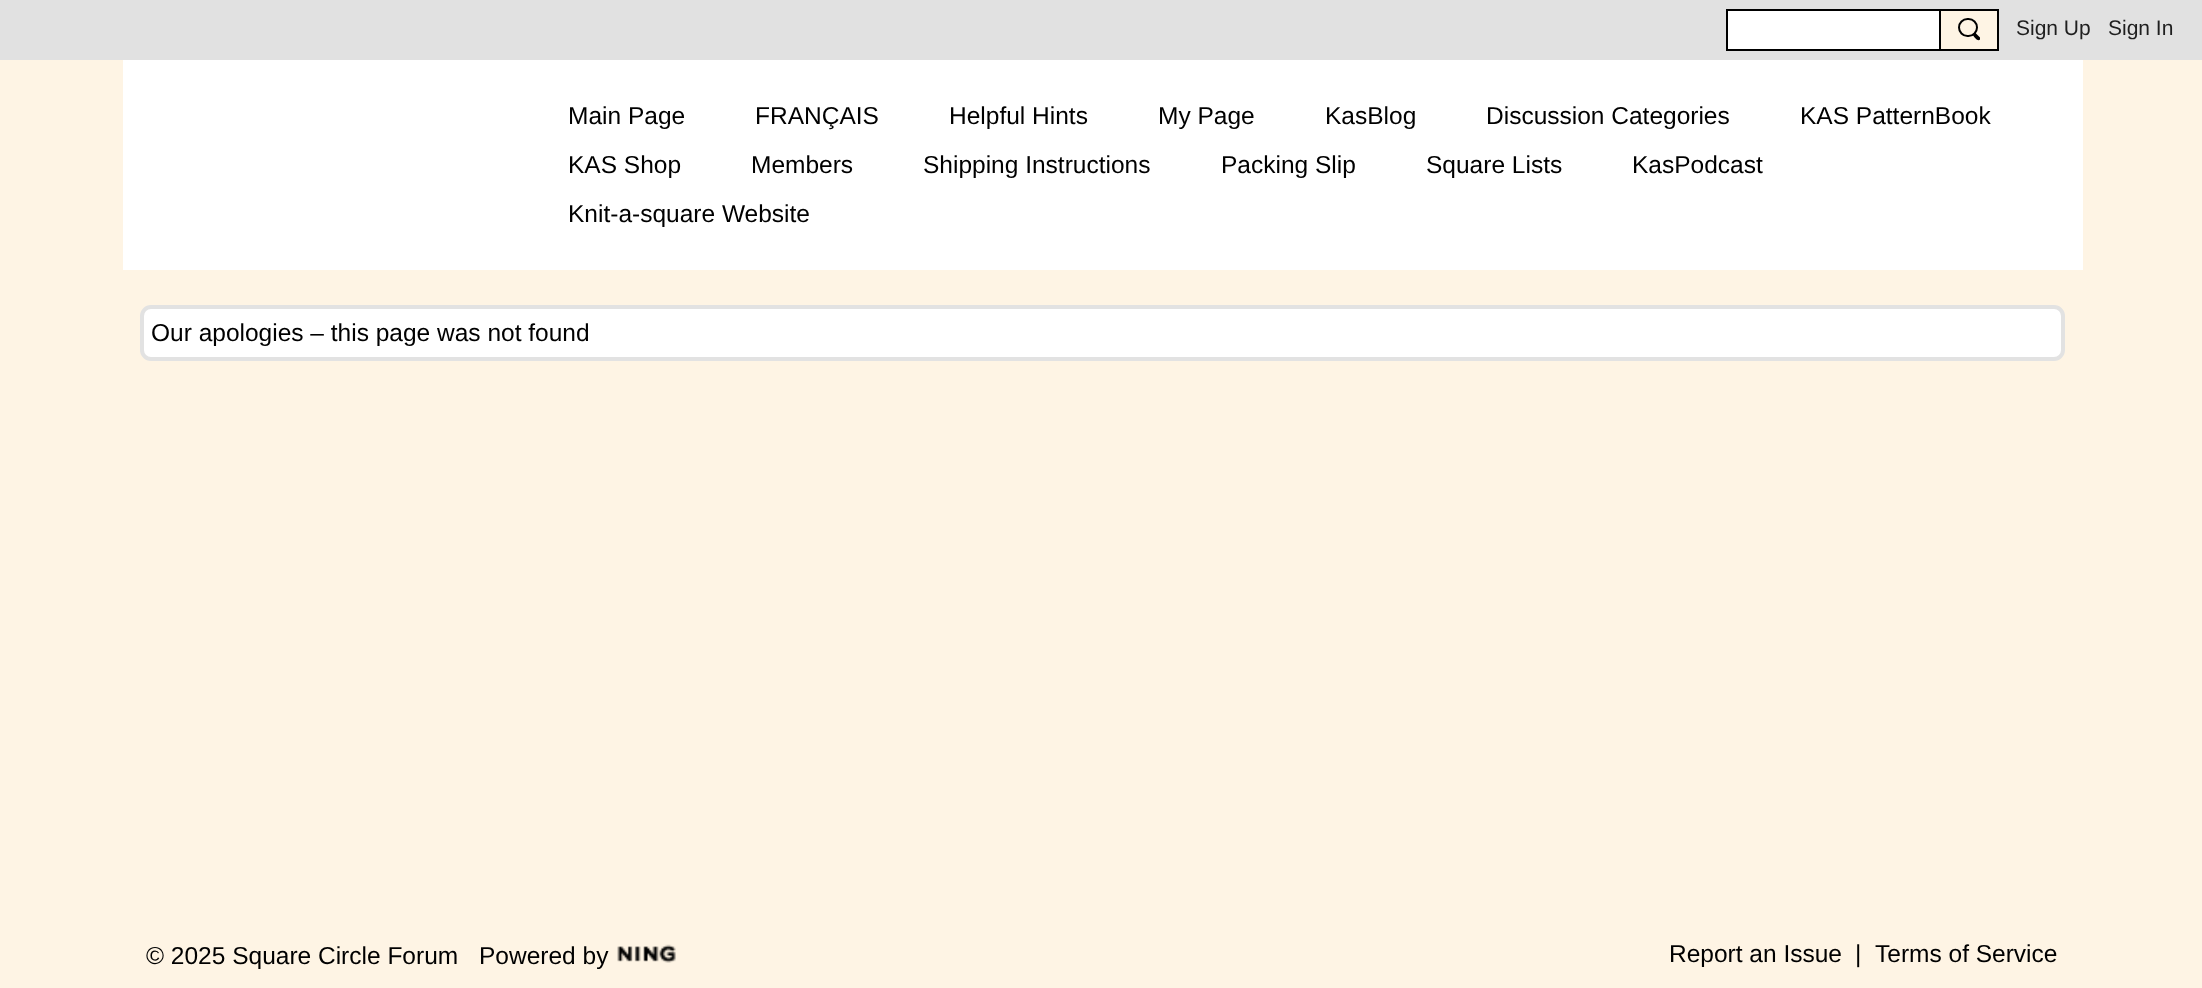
<!DOCTYPE html>
<meta charset="utf-8">
<style>body { margin: 0 } canvas { display: block }</style>
<canvas id="canvas" width="2202" height="988"></canvas>
<script type="module">
  const canvas = document.getElementById("canvas");
  const ctx = canvas.getContext("2d");
  ctx.miterLimit = 4;
  ctx.fontKerning = "normal";
  async function loadImage(src) {
    const img = new Image();
    img.src = src;
    await img.decode();
    return img;
  }

  ctx.fillStyle = "#fef4e4";
  ctx.fillRect(0, 0, 2202, 988);
  ctx.fillStyle = "#e1e1e1";
  ctx.fillRect(0, 0, 2202, 60);
  ctx.fillStyle = "#ffffff";
  ctx.beginPath();
  ctx.rect(1727, 10, 213, 40);
  ctx.fill();
  ctx.strokeStyle = "#000000";
  ctx.lineWidth = 2;
  ctx.stroke();
  ctx.fillStyle = "#fef4e4";
  ctx.beginPath();
  ctx.rect(1940, 10, 58, 40);
  ctx.fill();
  ctx.stroke();
  ctx.beginPath();
  ctx.roundRect(1959, 19, 18, 17, 8.5);
  ctx.stroke();
  ctx.fillStyle = "#000000";
  ctx.beginPath();
  ctx.moveTo(1976, 33.5);
  ctx.lineTo(1980, 37.5);
  ctx.bezierCurveTo(1980, 38, 1980, 39, 1980, 39.5);
  ctx.bezierCurveTo(1978, 42, 1974.5, 37.5, 1973.5, 36);
  ctx.bezierCurveTo(1972, 34.5, 1974.5, 32, 1976, 33.5);
  ctx.closePath();
  ctx.fill();
  ctx.font = "21px Liberation Sans";
  ctx.fillStyle = "#1f1f1f";
  ctx.fillText("Sign Up", 2016, 35);
  ctx.fillText("Sign In", 2108, 35);
  ctx.fillStyle = "#ffffff";
  ctx.fillRect(123, 60, 1960, 210);
  ctx.font = "24.5px Liberation Sans";
  ctx.fillStyle = "#000000";
  ctx.fillText("Main Page", 568, 124);
  ctx.fillText("FRANÇAIS", 755, 124);
  ctx.fillText("Helpful Hints", 949, 124);
  ctx.fillText("My Page", 1158, 124);
  ctx.fillText("KasBlog", 1325, 124);
  ctx.fillText("Discussion Categories", 1486, 124);
  ctx.fillText("KAS PatternBook", 1800, 124);
  ctx.fillText("KAS Shop", 568, 173);
  ctx.fillText("Members", 751, 173);
  ctx.fillText("Shipping Instructions", 923, 173);
  ctx.fillText("Packing Slip", 1221, 173);
  ctx.fillText("Square Lists", 1426, 173);
  ctx.fillText("KasPodcast", 1632, 173);
  ctx.fillText("Knit-a-square Website", 568, 222);
  ctx.fillStyle = "#ffffff";
  ctx.beginPath();
  ctx.roundRect(142, 307, 1921, 52, 9);
  ctx.fill();
  ctx.strokeStyle = "#e2e2e2";
  ctx.lineWidth = 4;
  ctx.stroke();
  ctx.fillStyle = "#000000";
  ctx.fillText("Our apologies – this page was not found", 151, 341);
  ctx.fillText("© 2025 Square Circle Forum", 146, 964);
  ctx.fillText("Powered by", 479, 964);
  ctx.drawImage(await loadImage("img1.png"), 617, 944, 59, 19);
  ctx.fillText("Report an Issue", 1669, 962);
  ctx.fillText("|", 1855, 962);
  ctx.fillText("Terms of Service", 1875, 962);
</script>
